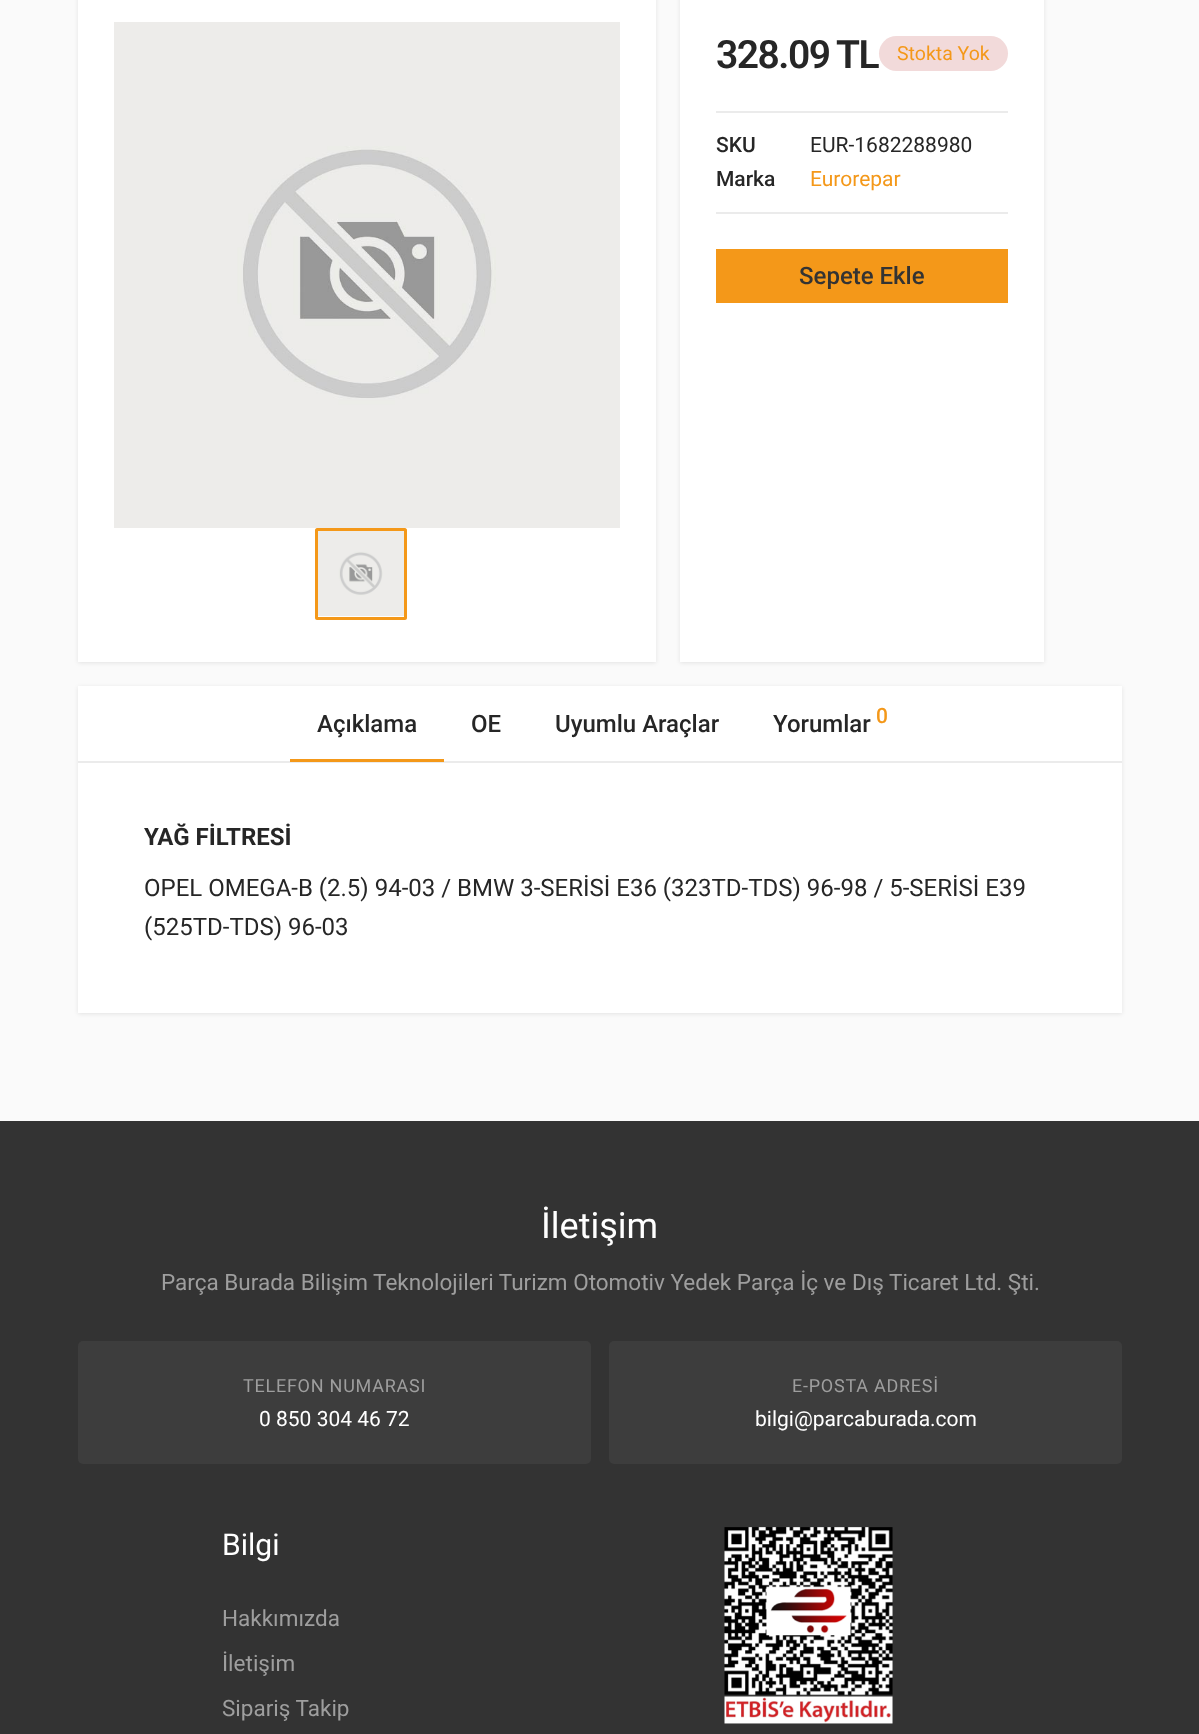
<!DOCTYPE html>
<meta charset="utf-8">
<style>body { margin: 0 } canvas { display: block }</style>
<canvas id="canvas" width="1199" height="1734"></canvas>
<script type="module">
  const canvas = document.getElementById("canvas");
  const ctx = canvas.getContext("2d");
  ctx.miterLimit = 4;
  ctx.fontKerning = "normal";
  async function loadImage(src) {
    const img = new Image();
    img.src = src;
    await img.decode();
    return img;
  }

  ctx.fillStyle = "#fafafa";
  ctx.fillRect(0, 0, 1199, 1734);
  ctx.fillStyle = "rgba(0, 0, 0, 0.09)";
  ctx.filter = "blur(2px)";
  ctx.beginPath();
  ctx.rect(78, -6, 578, 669);
  ctx.fill();
  ctx.filter = "none";
  ctx.fillStyle = "#ffffff";
  ctx.fillRect(78, 0, 578, 662);
  ctx.drawImage(await loadImage("img1.png"), 114, 22, 506, 506);
  ctx.fillStyle = "#f49819";
  ctx.beginPath();
  ctx.moveTo(317, 528);
  ctx.bezierCurveTo(316, 528, 315, 529, 315, 530);
  ctx.lineTo(315, 618);
  ctx.bezierCurveTo(315, 619, 316, 620, 317, 620);
  ctx.lineTo(405, 620);
  ctx.bezierCurveTo(406, 620, 407, 619, 407, 618);
  ctx.lineTo(407, 530);
  ctx.bezierCurveTo(407, 529, 406, 528, 405, 528);
  ctx.closePath();
  ctx.moveTo(318, 531);
  ctx.lineTo(318, 617);
  ctx.lineTo(404, 617);
  ctx.lineTo(404, 531);
  ctx.closePath();
  ctx.fill("evenodd");
  ctx.drawImage(await loadImage("img2.png"), 318, 531, 86, 85);
  ctx.fillStyle = "rgba(0, 0, 0, 0.09)";
  ctx.filter = "blur(2px)";
  ctx.beginPath();
  ctx.rect(680, -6, 364, 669);
  ctx.fill();
  ctx.filter = "none";
  ctx.fillStyle = "#ffffff";
  ctx.fillRect(680, 0, 364, 662);
  ctx.letterSpacing = "-1.5px";
  ctx.font = "600 39px Roboto";
  ctx.fillStyle = "#262626";
  ctx.fillText("328.09", 716, 68);
  ctx.fillText("TL", 836, 68);
  ctx.fillStyle = "#f2dada";
  ctx.beginPath();
  ctx.roundRect(879, 36, 129, 35, 17.5);
  ctx.fill();
  ctx.letterSpacing = "0px";
  ctx.font = "19.5px Roboto";
  ctx.fillStyle = "#f49819";
  ctx.fillText("Stokta Yok", 897, 60);
  ctx.fillStyle = "#ebebeb";
  ctx.fillRect(716, 111, 292, 2);
  ctx.fillRect(716, 212, 292, 2);
  ctx.font = "500 21px Roboto";
  ctx.fillStyle = "#262626";
  ctx.fillText("SKU", 716, 152);
  ctx.font = "21px Roboto";
  ctx.fillText("EUR-1682288980", 810, 152);
  ctx.font = "500 21px Roboto";
  ctx.fillText("Marka", 716, 186);
  ctx.font = "21px Roboto";
  ctx.fillStyle = "#f49819";
  ctx.fillText("Eurorepar", 810, 186);
  ctx.fillRect(716, 249, 292, 54);
  ctx.font = "500 24px Roboto";
  ctx.fillStyle = "#333333";
  ctx.fillText("Sepete Ekle", 799, 284);
  ctx.fillStyle = "rgba(0, 0, 0, 0.09)";
  ctx.filter = "blur(2px)";
  ctx.beginPath();
  ctx.rect(78, 687, 1044, 327);
  ctx.fill();
  ctx.filter = "none";
  ctx.fillStyle = "#ffffff";
  ctx.fillRect(78, 686, 1044, 327);
  ctx.fillStyle = "#ebebeb";
  ctx.fillRect(78, 761, 1044, 2);
  ctx.fillStyle = "#f49819";
  ctx.fillRect(290, 759, 154, 3);
  ctx.fillStyle = "#262626";
  ctx.fillText("Açıklama", 317, 732);
  ctx.fillText("OE", 471, 732);
  ctx.fillText("Uyumlu Araçlar", 555, 732);
  ctx.fillText("Yorumlar", 773, 732);
  ctx.font = "500 21px Roboto";
  ctx.fillStyle = "#f49819";
  ctx.fillText("0", 876, 723);
  ctx.font = "bold 24px Roboto";
  ctx.fillStyle = "#262626";
  ctx.fillText("YAĞ FİLTRESİ", 144, 845);
  ctx.font = "24px Roboto";
  ctx.fillText("OPEL OMEGA-B (2.5) 94-03 / BMW 3-SERİSİ E36 (323TD-TDS) 96-98 / 5-SERİSİ E39", 144, 896);
  ctx.fillText("(525TD-TDS) 96-03", 144, 935);
  ctx.fillStyle = "#333333";
  ctx.fillRect(0, 1121, 1199, 613);
  ctx.font = "36px Roboto";
  ctx.fillStyle = "#ffffff";
  ctx.fillText("İletişim", 541, 1238);
  ctx.font = "22.5px Roboto";
  ctx.fillStyle = "#9e9e9e";
  ctx.fillText("Parça Burada Bilişim Teknolojileri Turizm Otomotiv Yedek Parça İç ve Dış Ticaret Ltd. Şti.", 161, 1290);
  ctx.fillStyle = "#3d3d3d";
  ctx.beginPath();
  ctx.roundRect(78, 1341, 513, 123, 5);
  ctx.fill();
  ctx.letterSpacing = "0.75px";
  ctx.font = "18px Roboto";
  ctx.fillStyle = "#9e9e9e";
  ctx.fillText("TELEFON NUMARASI", 243, 1392);
  ctx.letterSpacing = "0px";
  ctx.font = "21px Roboto";
  ctx.fillStyle = "#ffffff";
  ctx.fillText("0 850 304 46 72", 259, 1426);
  ctx.fillStyle = "#3d3d3d";
  ctx.beginPath();
  ctx.roundRect(609, 1341, 513, 123, 5);
  ctx.fill();
  ctx.letterSpacing = "0.75px";
  ctx.font = "18px Roboto";
  ctx.fillStyle = "#9e9e9e";
  ctx.fillText("E-POSTA ADRESİ", 792, 1392);
  ctx.letterSpacing = "0px";
  ctx.font = "21px Roboto";
  ctx.fillStyle = "#ffffff";
  ctx.fillText("bilgi@parcaburada.com", 755, 1426);
  ctx.font = "30px Roboto";
  ctx.fillText("Bilgi", 222, 1555);
  ctx.font = "22.5px Roboto";
  ctx.fillStyle = "#9e9e9e";
  ctx.fillText("Hakkımızda", 222, 1626);
  ctx.fillText("İletişim", 222, 1671);
  ctx.fillText("Sipariş Takip", 222, 1716);
  ctx.drawImage(await loadImage("img3.png"), 724, 1527, 169, 197);
</script>
